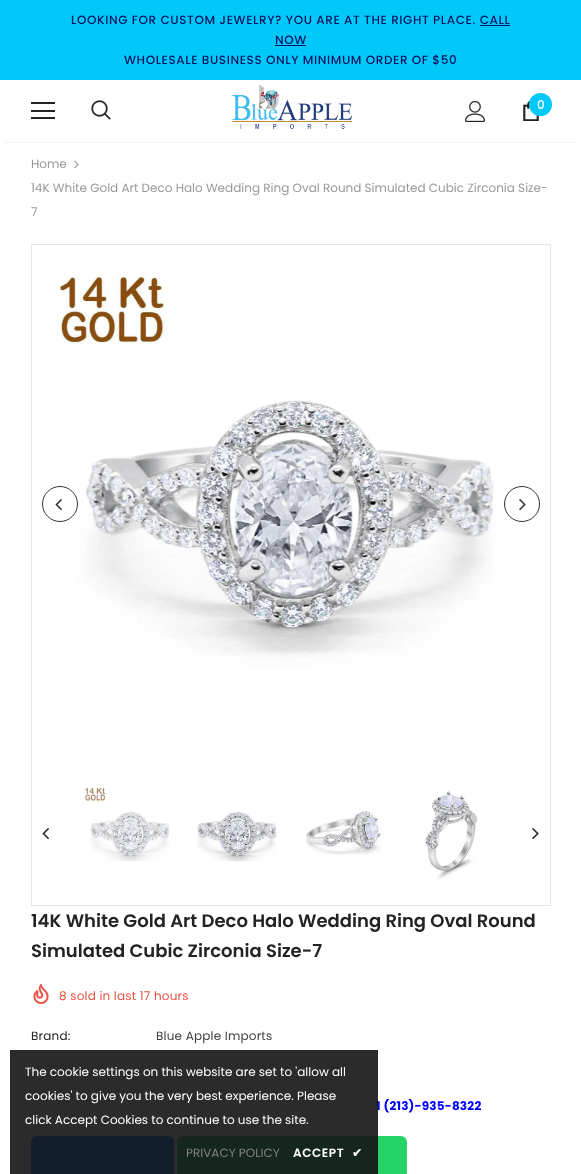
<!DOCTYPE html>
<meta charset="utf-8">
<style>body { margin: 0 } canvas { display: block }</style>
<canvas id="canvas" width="581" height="1174"></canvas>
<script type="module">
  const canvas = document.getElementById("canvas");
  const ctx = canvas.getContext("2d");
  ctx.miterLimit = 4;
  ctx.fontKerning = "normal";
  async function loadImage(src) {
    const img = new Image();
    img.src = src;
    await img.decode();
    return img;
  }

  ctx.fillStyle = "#ffffff";
  ctx.fillRect(0, 0, 581, 1174);
  ctx.fillStyle = "#00c8f9";
  ctx.fillRect(0, 0, 581, 80);
  ctx.letterSpacing = "0.6px";
  ctx.font = "500 12px Poppins";
  ctx.fillStyle = "#01155e";
  ctx.fillText("LOOKING FOR CUSTOM JEWELRY? YOU ARE AT THE RIGHT PLACE. CALL", 71, 24);
  ctx.fillText("NOW", 275, 44);
  ctx.fillRect(480, 25, 30, 1);
  ctx.fillRect(275, 45, 31, 1);
  ctx.fillText("WHOLESALE BUSINESS ONLY MINIMUM ORDER OF $50", 124, 64);
  ctx.save();
  ctx.beginPath();
  ctx.rect(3, 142, 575, 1);
  ctx.clip();
  ctx.fillStyle = "rgba(0, 0, 0, 0.12)";
  ctx.filter = "blur(1.5px)";
  ctx.beginPath();
  ctx.rect(3, 86, 575, 56);
  ctx.fill();
  ctx.filter = "none";
  ctx.restore();
  ctx.fillStyle = "#232323";
  ctx.fillRect(31, 102, 24, 2);
  ctx.fillRect(31, 110, 24, 2);
  ctx.fillRect(31, 117, 24, 2);
  ctx.drawImage(await loadImage("img1.png"), 91, 100, 20, 20);
  ctx.drawImage(await loadImage("img2.png"), 232, 84, 121, 45);
  ctx.drawImage(await loadImage("img3.png"), 465, 101, 20, 21);
  ctx.drawImage(await loadImage("img4.png"), 523, 101, 16, 20);
  ctx.fillStyle = "#00c8f9";
  ctx.beginPath();
  ctx.arc(540.5, 104.5, 11.5, 0, Math.PI * 2);
  ctx.fill();
  ctx.letterSpacing = "0px";
  ctx.fillStyle = "#ffffff";
  ctx.fillText("0", 537, 109);
  ctx.font = "12px Poppins";
  ctx.fillStyle = "#999999";
  ctx.fillText("Home", 31, 168);
  ctx.drawImage(await loadImage("img5.png"), 74, 160, 5, 9);
  ctx.fillText("14K White Gold Art Deco Halo Wedding Ring Oval Round Simulated Cubic Zirconia Size-", 31, 192);
  ctx.fillText("7", 31, 216);
  ctx.strokeStyle = "#e6e6e6";
  ctx.strokeRect(31.5, 244.5, 519, 661);
  ctx.drawImage(await loadImage("img6.png"), 59, 275, 435, 395);
  ctx.beginPath();
  ctx.arc(60, 504, 17.5, 0, Math.PI * 2);
  ctx.strokeStyle = "#323232";
  ctx.stroke();
  ctx.drawImage(await loadImage("img7.png"), 55, 499, 7, 12);
  ctx.beginPath();
  ctx.arc(522, 504, 17.5, 0, Math.PI * 2);
  ctx.stroke();
  ctx.drawImage(await loadImage("img8.png"), 519, 499, 7, 12);
  ctx.drawImage(await loadImage("img9.png"), 42, 828, 7, 12);
  ctx.drawImage(await loadImage("img10.png"), 84, 786, 86, 76);
  ctx.drawImage(await loadImage("img11.png"), 197, 812, 80, 50);
  ctx.drawImage(await loadImage("img12.png"), 305, 811, 77, 44);
  ctx.drawImage(await loadImage("img13.png"), 425, 791, 53, 89);
  ctx.drawImage(await loadImage("img14.png"), 532, 828, 7, 12);
  ctx.font = "600 18px Poppins";
  ctx.fillStyle = "#232323";
  ctx.fillText("14K White Gold Art Deco Halo Wedding Ring Oval Round", 31, 927);
  ctx.fillText("Simulated Cubic Zirconia Size-7", 31, 957);
  ctx.drawImage(await loadImage("img15.png"), 33, 984, 16, 20);
  ctx.letterSpacing = "0.2px";
  ctx.font = "12px Poppins";
  ctx.fillStyle = "#e95144";
  ctx.fillText("8 sold in last 17 hours", 59, 1000);
  ctx.fillStyle = "#232323";
  ctx.fillText("Brand:", 31, 1040);
  ctx.fillStyle = "#3c3c3c";
  ctx.fillText("Blue Apple Imports", 156, 1040);
  ctx.font = "bold 12px Poppins";
  ctx.fillStyle = "#0000ff";
  ctx.fillText("1 (213)-935-8322", 376, 1110);
  ctx.fillStyle = "#007bff";
  ctx.beginPath();
  ctx.roundRect(31, 1136, 143, 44, 6);
  ctx.fill();
  ctx.fillStyle = "#25d366";
  ctx.beginPath();
  ctx.roundRect(177, 1136, 230, 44, 6);
  ctx.fill();
  ctx.fillStyle = "rgba(20, 20, 20, 0.9)";
  ctx.fillRect(10, 1050, 368, 124);
  ctx.letterSpacing = "0px";
  ctx.font = "12px Poppins";
  ctx.fillStyle = "#ffffff";
  ctx.fillText("The cookie settings on this website are set to 'allow all", 25, 1076);
  ctx.fillText("cookies' to give you the very best experience. Please", 25, 1100);
  ctx.fillText("click Accept Cookies to continue to use the site.", 25, 1124);
  ctx.fillStyle = "#818181";
  ctx.fillText("PRIVACY POLICY", 186, 1157);
  ctx.letterSpacing = "0.6px";
  ctx.font = "600 12px Poppins";
  ctx.fillStyle = "#ffffff";
  ctx.fillText("ACCEPT", 293, 1157);
  ctx.font = "bold 12px DejaVu Sans";
  ctx.fillText("✔", 352, 1157);
</script>
